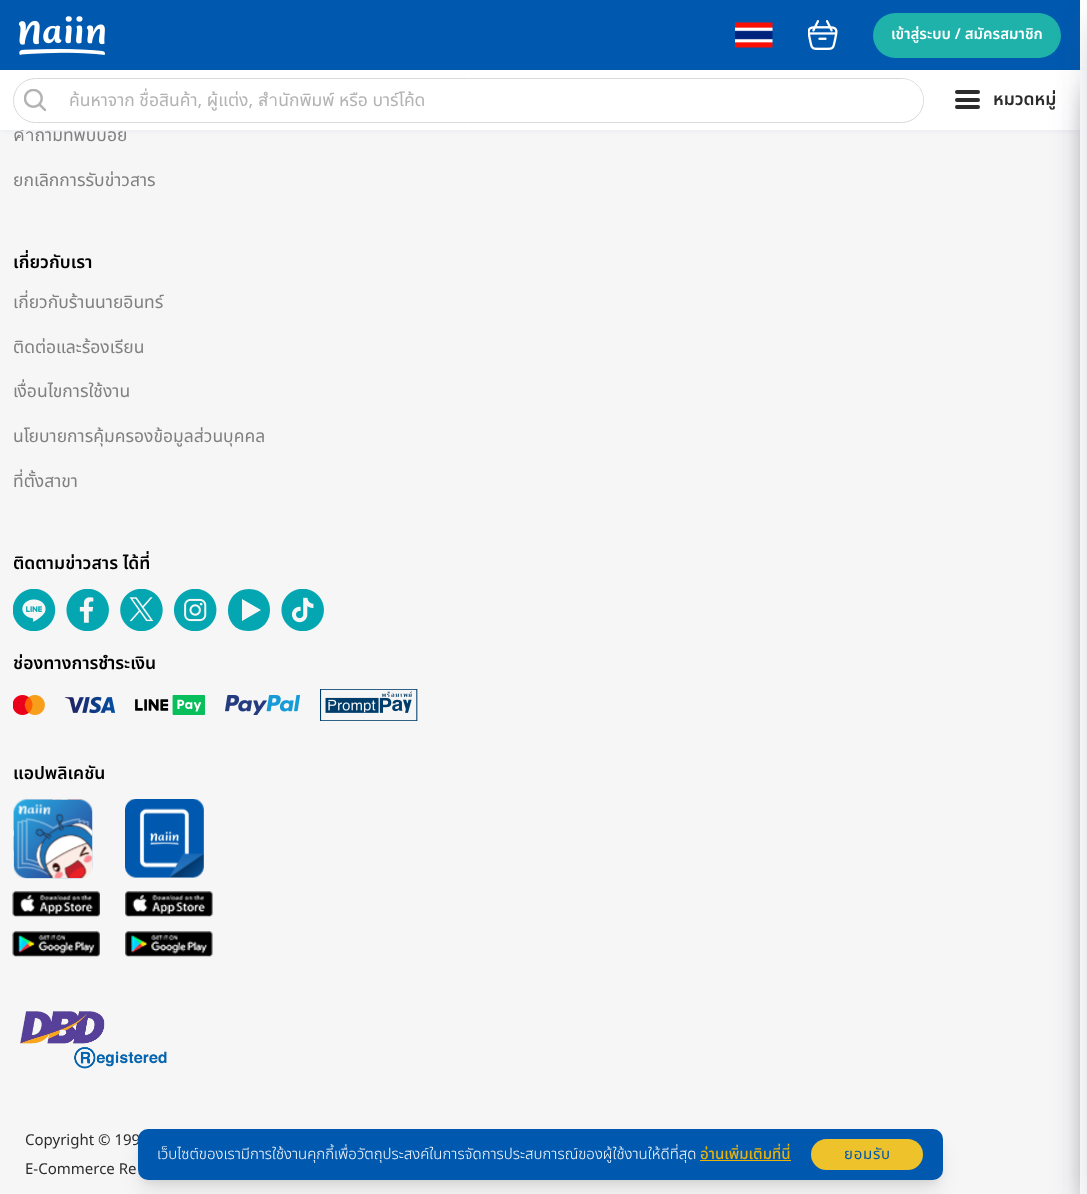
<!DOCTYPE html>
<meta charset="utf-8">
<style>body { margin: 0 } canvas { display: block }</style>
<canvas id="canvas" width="1087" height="1194"></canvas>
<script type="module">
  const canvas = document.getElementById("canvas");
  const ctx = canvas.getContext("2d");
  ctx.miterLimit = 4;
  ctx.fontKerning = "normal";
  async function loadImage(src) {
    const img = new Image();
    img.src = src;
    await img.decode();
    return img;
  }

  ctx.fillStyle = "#ffffff";
  ctx.fillRect(0, 0, 1087, 1194);
  ctx.fillStyle = "#f6f6f6";
  ctx.fillRect(0, 130, 1080, 1064);
  ctx.fillStyle = "rgba(165, 181, 217, 0.65)";
  ctx.filter = "blur(4px)";
  ctx.beginPath();
  ctx.rect(1, 73, 1078, 53);
  ctx.fill();
  ctx.filter = "none";
  ctx.font = "17.5px Noto Sans Thai";
  ctx.fillStyle = "#808080";
  ctx.fillText("คำถามที่พบบ่อย", 13, 141);
  ctx.strokeStyle = "rgba(255, 255, 255, 0.1)";
  ctx.lineWidth = 3;
  ctx.strokeRect(-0.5, 65.5, 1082, 58);
  ctx.fillStyle = "#0059af";
  ctx.fillRect(0, 0, 1080, 70);
  ctx.drawImage(await loadImage("img1.png"), 19, 16, 86, 39);
  ctx.drawImage(await loadImage("img2.png"), 735, 22, 38, 26);
  ctx.drawImage(await loadImage("img3.png"), 808, 20, 30, 30);
  ctx.fillStyle = "#1eb2aa";
  ctx.beginPath();
  ctx.roundRect(873, 13, 188, 45, 22.5);
  ctx.fill();
  ctx.font = "600 15px Noto Sans Thai";
  ctx.fillStyle = "#ffffff";
  ctx.fillText("เข้าสู่ระบบ / สมัครสมาชิก", 891, 39);
  ctx.fillRect(0, 70, 1080, 60);
  ctx.beginPath();
  ctx.roundRect(13.5, 78.5, 910, 44, 22);
  ctx.strokeStyle = "#d9d9d9";
  ctx.lineWidth = 1;
  ctx.stroke();
  ctx.drawImage(await loadImage("img4.png"), 24, 89, 22, 22);
  ctx.beginPath();
  ctx.roundRect(56, 79, 867, 42, 21);
  ctx.fill();
  ctx.save();
  ctx.beginPath();
  ctx.rect(69, 88, 844, 26);
  ctx.clip();
  ctx.font = "17.5px Noto Sans Thai";
  ctx.fillStyle = "#b3b3b3";
  ctx.fillText("ค้นหาจาก ชื่อสินค้า, ผู้แต่ง, สำนักพิมพ์ หรือ บาร์โค้ด", 69, 106);
  ctx.restore();
  ctx.fillStyle = "#2c2c2c";
  ctx.beginPath();
  ctx.roundRect(955, 90, 25, 4, 2);
  ctx.fill();
  ctx.beginPath();
  ctx.roundRect(955, 98, 25, 4, 2);
  ctx.fill();
  ctx.beginPath();
  ctx.roundRect(955, 105, 25, 4, 2);
  ctx.fill();
  ctx.font = "600 17.5px Noto Sans Thai";
  ctx.fillText("หมวดหมู่", 993, 105);
  ctx.fillStyle = "rgba(0, 0, 0, 0.3)";
  ctx.filter = "blur(10px)";
  ctx.beginPath();
  ctx.rect(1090, 90, 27, 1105);
  ctx.fill();
  ctx.filter = "none";
  ctx.fillStyle = "rgba(50, 50, 93, 0.25)";
  ctx.filter = "blur(17px)";
  ctx.beginPath();
  ctx.rect(1086, 93, 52, 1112);
  ctx.fill();
  ctx.filter = "none";
  ctx.fillStyle = "#ffffff";
  ctx.fillRect(1080, 70, 7, 1124);
  ctx.fillStyle = "rgba(50, 50, 93, 0.25)";
  ctx.filter = "blur(17px)";
  ctx.beginPath();
  ctx.rect(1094, 23, 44, 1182);
  ctx.fill();
  ctx.filter = "none";
  ctx.font = "17.5px Noto Sans Thai";
  ctx.fillStyle = "#808080";
  ctx.fillText("ยกเลิกการรับข่าวสาร", 13, 186);
  ctx.font = "600 17.5px Noto Sans Thai";
  ctx.fillStyle = "#000000";
  ctx.fillText("เกี่ยวกับเรา", 13, 268);
  ctx.font = "17.5px Noto Sans Thai";
  ctx.fillStyle = "#808080";
  ctx.fillText("เกี่ยวกับร้านนายอินทร์", 13, 308);
  ctx.fillText("ติดต่อและร้องเรียน", 13, 353);
  ctx.fillText("เงื่อนไขการใช้งาน", 13, 397);
  ctx.fillText("นโยบายการคุ้มครองข้อมูลส่วนบุคคล", 13, 442);
  ctx.fillText("ที่ตั้งสาขา", 13, 487);
  ctx.font = "600 17.5px Noto Sans Thai";
  ctx.fillStyle = "#000000";
  ctx.fillText("ติดตามข่าวสาร ได้ที่", 13, 569);
  ctx.drawImage(await loadImage("img5.png"), 13, 589, 43, 42);
  ctx.drawImage(await loadImage("img6.png"), 66, 589, 43, 42);
  ctx.drawImage(await loadImage("img7.png"), 120, 589, 43, 42);
  ctx.drawImage(await loadImage("img8.png"), 174, 589, 43, 42);
  ctx.fillStyle = "#04a6b1";
  ctx.beginPath();
  ctx.moveTo(249, 589);
  ctx.bezierCurveTo(221, 589, 221, 632, 249, 631);
  ctx.bezierCurveTo(277, 631, 277, 589, 249, 589);
  ctx.closePath();
  ctx.moveTo(242, 621);
  ctx.lineTo(242, 599);
  ctx.lineTo(261, 610);
  ctx.closePath();
  ctx.fill();
  ctx.drawImage(await loadImage("img9.png"), 281, 589, 43, 42);
  ctx.fillStyle = "#000000";
  ctx.fillText("ช่องทางการชำระเงิน", 13, 669);
  ctx.drawImage(await loadImage("img10.png"), 13, 695, 32, 20);
  ctx.drawImage(await loadImage("img11.png"), 64, 696, 52, 18);
  ctx.drawImage(await loadImage("img12.png"), 135, 695, 70, 20);
  ctx.drawImage(await loadImage("img13.png"), 225, 695, 75, 20);
  ctx.drawImage(await loadImage("img14.png"), 320, 689, 98, 32);
  ctx.fillText("แอปพลิเคชัน", 13, 779);
  ctx.drawImage(await loadImage("img15.png"), 13, 799, 80, 80);
  ctx.drawImage(await loadImage("img16.png"), 12, 891, 88, 26);
  ctx.drawImage(await loadImage("img17.png"), 12, 931, 88, 26);
  ctx.drawImage(await loadImage("img18.png"), 125, 799, 79, 79);
  ctx.drawImage(await loadImage("img19.png"), 125, 891, 88, 26);
  ctx.drawImage(await loadImage("img20.png"), 125, 931, 88, 26);
  ctx.drawImage(await loadImage("img21.png"), 20, 1011, 147, 58);
  ctx.font = "15px Noto Sans Thai";
  ctx.fillStyle = "#2c2c2c";
  ctx.fillText("Copyright © 199", 25, 1145);
  ctx.fillText("E-Commerce Re", 25, 1174);
  ctx.fillStyle = "rgba(0, 0, 0, 0.1)";
  ctx.filter = "blur(4px)";
  ctx.beginPath();
  ctx.roundRect(143, 1139, 795, 41, 5);
  ctx.fill();
  ctx.filter = "none";
  ctx.filter = "blur(9.5px)";
  ctx.beginPath();
  ctx.roundRect(141, 1145, 798, 44, 6);
  ctx.fill();
  ctx.filter = "none";
  ctx.fillStyle = "#0059af";
  ctx.beginPath();
  ctx.roundRect(138, 1129, 805, 51, 10);
  ctx.fill();
  ctx.font = "300 15px Noto Sans Thai";
  ctx.fillStyle = "#ffffff";
  ctx.fillText("เว็บไซต์ของเรามีการใช้งานคุกกี้เพื่อวัตถุประสงค์ในการจัดการประสบการณ์ของผู้ใช้งานให้ดีที่สุด", 157, 1159);
  ctx.font = "500 15px Noto Sans Thai";
  ctx.fillStyle = "#eab308";
  ctx.fillText("อ่านเพิ่มเติมที่นี่", 700, 1159);
  ctx.fillRect(700, 1160, 91, 1);
  ctx.fillStyle = "#eec22a";
  ctx.beginPath();
  ctx.roundRect(811, 1139, 112, 31, 15.5);
  ctx.fill();
  ctx.letterSpacing = "0.75px";
  ctx.font = "15px Noto Sans Thai";
  ctx.fillStyle = "#0059af";
  ctx.fillText("ยอมรับ", 844, 1159);
</script>
